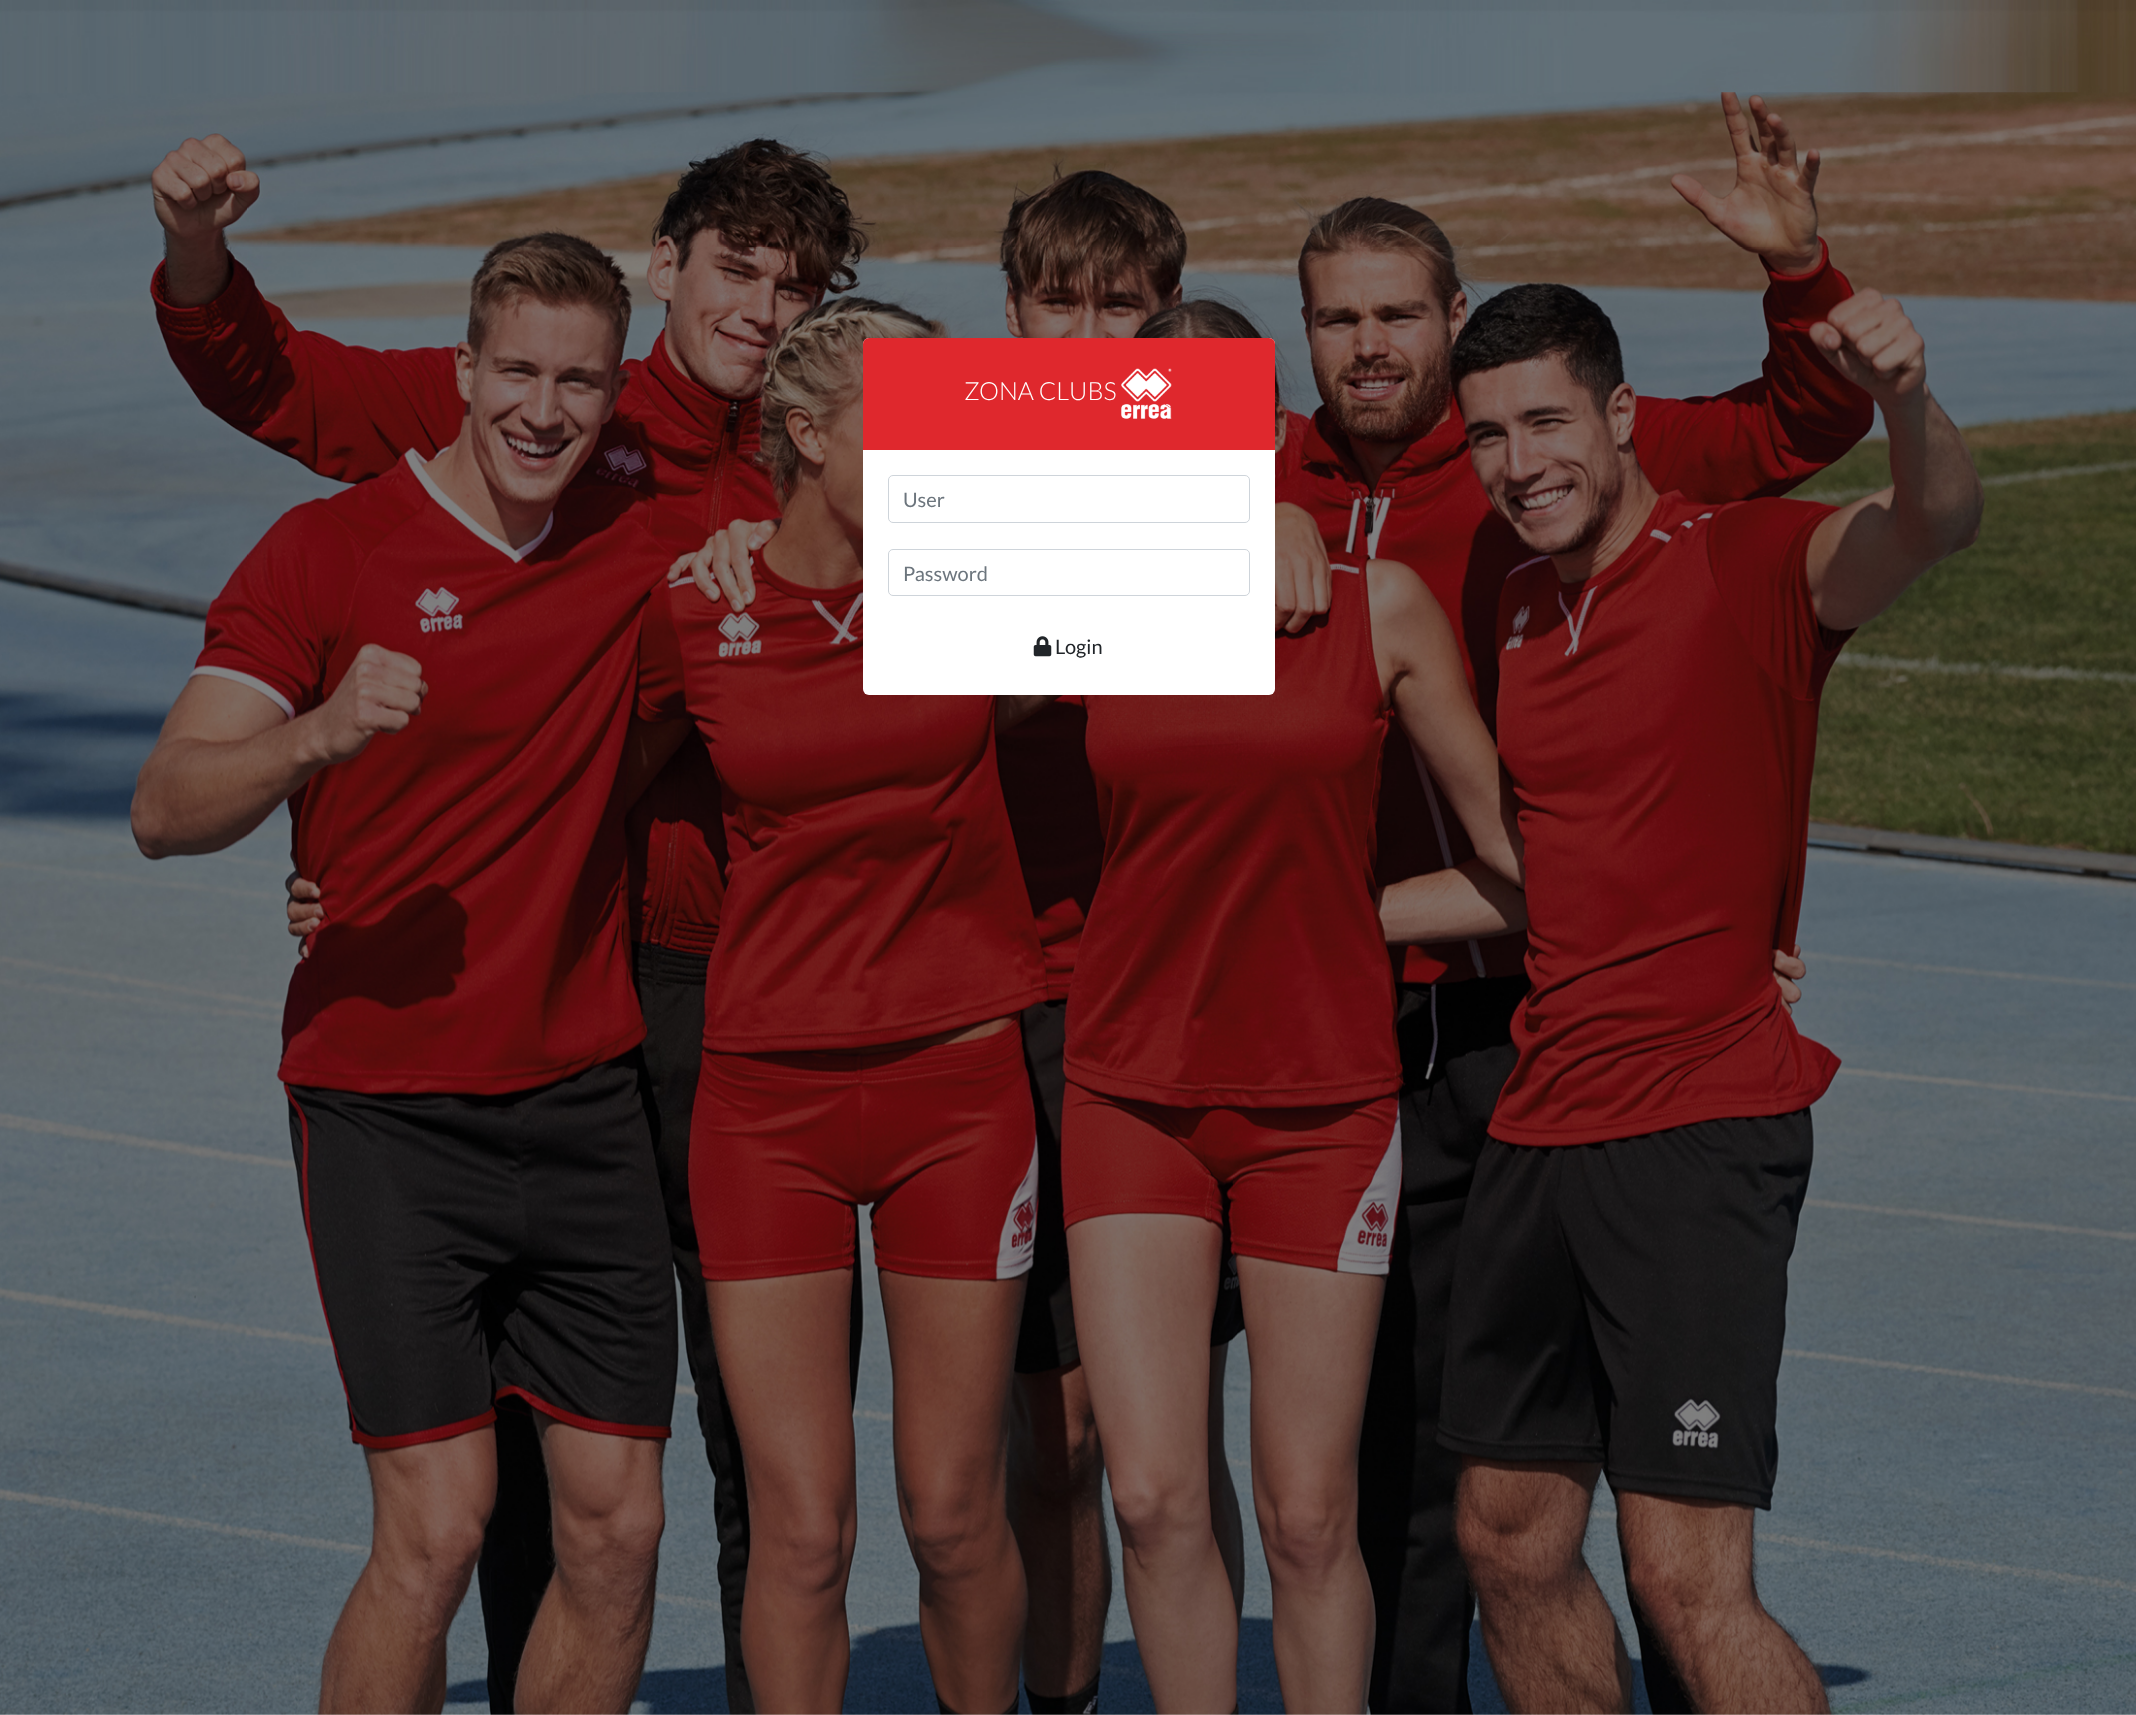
<!DOCTYPE html>
<meta charset="utf-8">
<style>body { margin: 0 } canvas { display: block }</style>
<canvas id="canvas" width="2136" height="1715"></canvas>
<script type="module">
  const canvas = document.getElementById("canvas");
  const ctx = canvas.getContext("2d");
  ctx.miterLimit = 4;
  ctx.fontKerning = "normal";
  async function loadImage(src) {
    const img = new Image();
    img.src = src;
    await img.decode();
    return img;
  }

  ctx.fillStyle = "#ffffff";
  ctx.fillRect(0, 0, 2136, 1715);
  ctx.drawImage(await loadImage("img1.png"), 0, 0, 2136, 1715);
  ctx.beginPath();
  ctx.roundRect(863, 338, 412, 357, 6);
  ctx.fill();
  ctx.fillStyle = "#df282d";
  ctx.beginPath();
  ctx.roundRect(863, 338, 412, 112, [6, 6, 0, 0]);
  ctx.fill();
  ctx.font = "300 25px Lato";
  ctx.fillStyle = "#ffffff";
  ctx.fillText("ZONA CLUBS", 964, 400);
  ctx.drawImage(await loadImage("img2.png"), 1121, 368, 51, 51);
  ctx.beginPath();
  ctx.roundRect(888.5, 475.5, 361, 47, 4.5);
  ctx.strokeStyle = "#ced4da";
  ctx.stroke();
  ctx.font = "20px Lato";
  ctx.fillStyle = "#6c757d";
  ctx.fillText("User", 903, 507);
  ctx.beginPath();
  ctx.roundRect(888.5, 549.5, 361, 46, 4.5);
  ctx.stroke();
  ctx.fillText("Password", 903, 581);
  ctx.drawImage(await loadImage("img3.png"), 1033, 636, 19, 21);
  ctx.fillStyle = "#212529";
  ctx.fillText("Login", 1055, 654);
</script>
